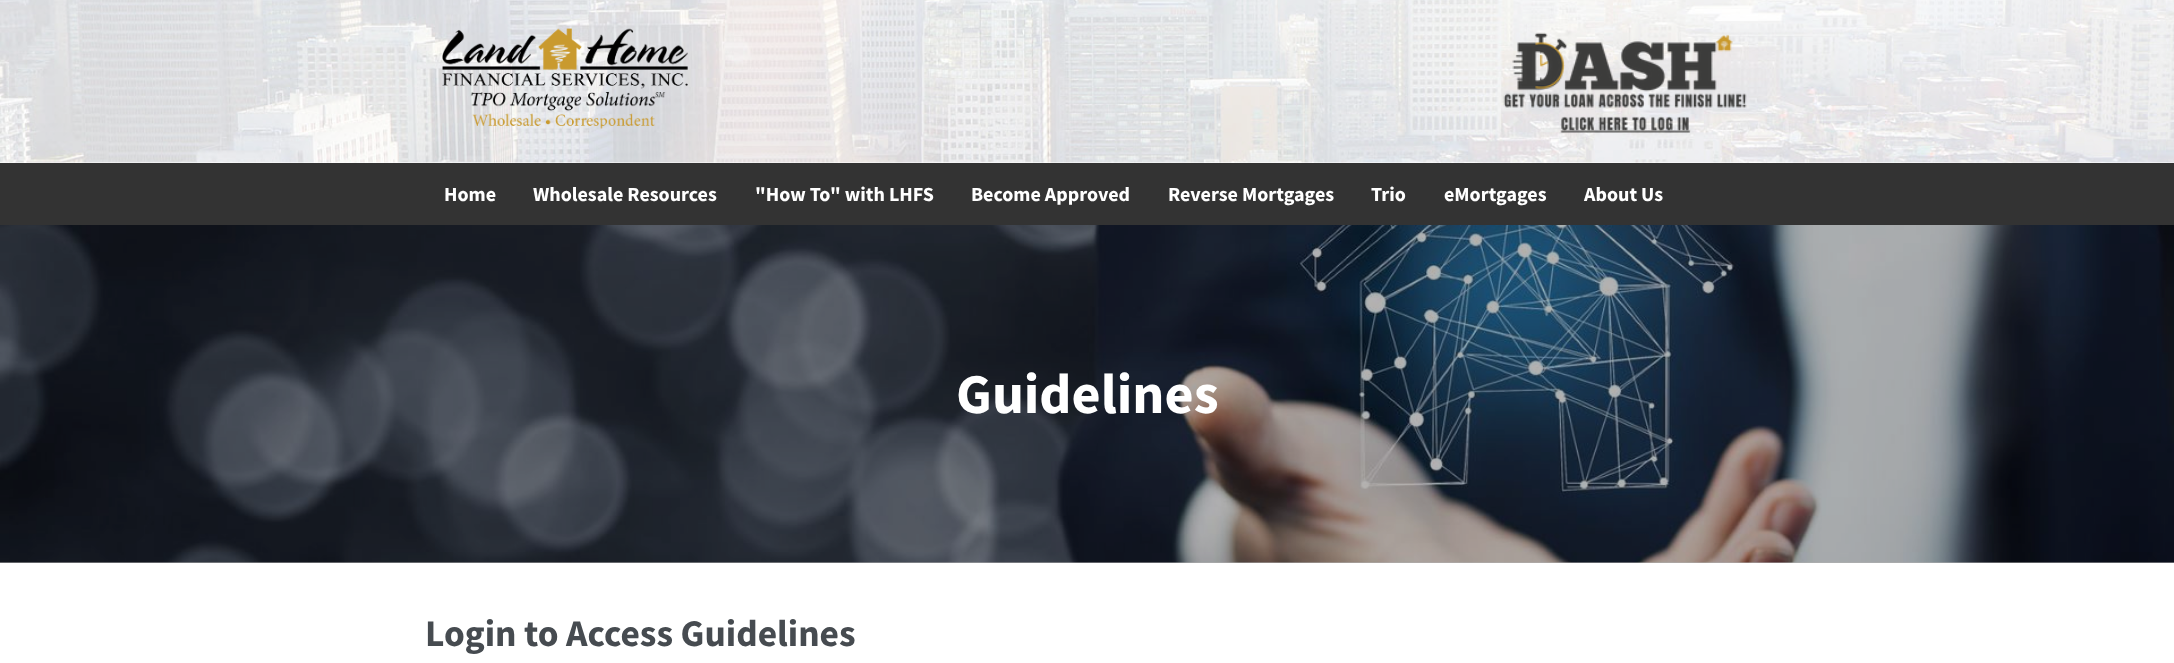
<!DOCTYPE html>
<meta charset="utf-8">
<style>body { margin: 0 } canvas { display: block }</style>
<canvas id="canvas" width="2174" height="663"></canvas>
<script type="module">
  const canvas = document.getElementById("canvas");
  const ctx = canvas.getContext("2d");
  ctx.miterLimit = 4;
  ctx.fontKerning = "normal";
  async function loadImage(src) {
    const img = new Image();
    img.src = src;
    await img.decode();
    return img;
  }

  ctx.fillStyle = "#ffffff";
  ctx.fillRect(0, 0, 2174, 663);
  ctx.fillStyle = "#b3b3b3";
  ctx.fillRect(0, 562, 2174, 1);
  ctx.drawImage(await loadImage("img1.png"), 0, 0, 2174, 163);
  ctx.drawImage(await loadImage("img2.png"), 442, 28, 246, 101);
  ctx.drawImage(await loadImage("img3.png"), 1503, 32, 244, 101);
  ctx.fillStyle = "#333333";
  ctx.fillRect(0, 163, 2174, 62);
  ctx.font = "bold 20px Source Sans Pro";
  ctx.fillStyle = "#ffffff";
  ctx.fillText("Home", 444, 201);
  ctx.fillText("Wholesale Resources", 533, 201);
  ctx.fillText("\"How To\" with LHFS", 755, 201);
  ctx.fillText("Become Approved", 971, 201);
  ctx.fillText("Reverse Mortgages", 1168, 201);
  ctx.fillText("Trio", 1371, 201);
  ctx.fillText("eMortgages", 1444, 201);
  ctx.fillText("About Us", 1584, 201);
  ctx.drawImage(await loadImage("img4.png"), 0, 225, 2174, 338);
  ctx.font = "bold 56.25px Source Sans Pro";
  ctx.fillText("Guidelines", 956, 413);
  ctx.font = "bold 37.5px Source Sans Pro";
  ctx.fillStyle = "#464b50";
  ctx.fillText("Login to Access Guidelines", 425, 646);
</script>
